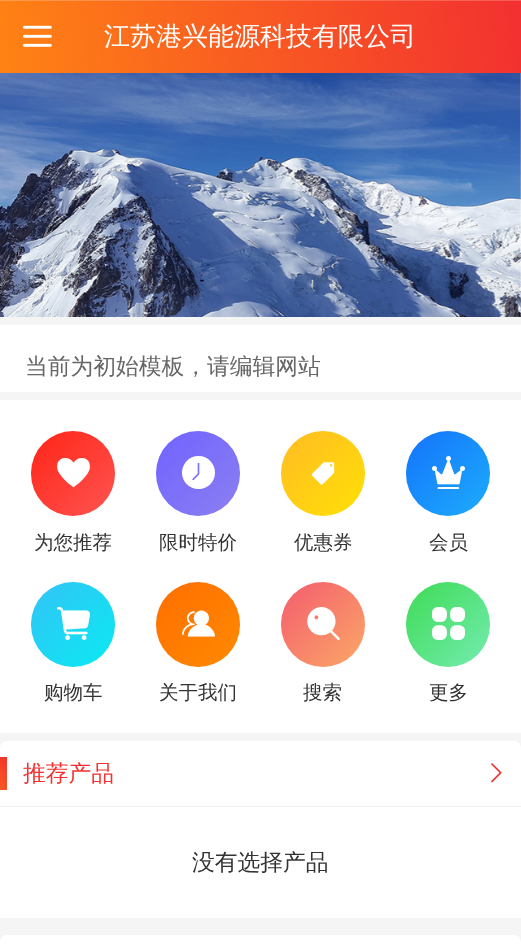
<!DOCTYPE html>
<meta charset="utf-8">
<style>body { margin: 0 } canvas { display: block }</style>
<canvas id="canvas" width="521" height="950"></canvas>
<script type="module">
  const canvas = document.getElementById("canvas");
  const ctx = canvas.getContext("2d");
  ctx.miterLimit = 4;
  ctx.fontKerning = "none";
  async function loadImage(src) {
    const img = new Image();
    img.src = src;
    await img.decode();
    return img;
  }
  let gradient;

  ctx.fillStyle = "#ffffff";
  ctx.fillRect(0, 0, 521, 950);
  gradient = ctx.createLinearGradient(0, 73, 521, 0);
  gradient.addColorStop(0, "#ff8314");
  gradient.addColorStop(1, "#f23030");
  ctx.fillStyle = gradient;
  ctx.fillRect(0, 1, 521, 72);
  ctx.drawImage(await loadImage("img1.png"), 23, 25, 29, 22);
  gradient = ctx.createLinearGradient(0, 73, 521, 0);
  gradient.addColorStop(0, "#ff9c43");
  gradient.addColorStop(1, "#f55959");
  ctx.fillStyle = gradient;
  ctx.fillRect(0, 0, 521, 1);
  ctx.font = "500 26px WenQuanYi Zen Hei";
  ctx.fillStyle = "#ffffff";
  ctx.fillText("江苏港兴能源科技有限公司", 104, 45);
  ctx.drawImage(await loadImage("img2.png"), 0, 73, 521, 244);
  ctx.fillStyle = "#f5f5f5";
  ctx.fillRect(0, 317, 521, 83);
  ctx.fillStyle = "#ffffff";
  ctx.fillRect(0, 325, 521, 67);
  ctx.font = "500 22.75px WenQuanYi Zen Hei";
  ctx.fillStyle = "#666666";
  ctx.fillText("当前为初始模板，请编辑网站", 25, 374);
  gradient = ctx.createLinearGradient(31, 432, 115, 515);
  gradient.addColorStop(0, "#ff2517");
  gradient.addColorStop(1, "#ff5451");
  ctx.fillStyle = gradient;
  ctx.beginPath();
  ctx.roundRect(31, 431, 84, 85, 42);
  ctx.fill();
  ctx.font = "33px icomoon";
  ctx.fillStyle = "#ffffff";
  ctx.fillText("򠉩", 57, 487);
  ctx.font = "500 19.5px WenQuanYi Zen Hei";
  ctx.fillStyle = "#333333";
  ctx.fillText("为您推荐", 34, 549);
  gradient = ctx.createLinearGradient(156, 432, 240, 515);
  gradient.addColorStop(0, "#7063ff");
  gradient.addColorStop(1, "#8c7ff1");
  ctx.fillStyle = gradient;
  ctx.beginPath();
  ctx.roundRect(156, 431, 84, 85, 42);
  ctx.fill();
  ctx.font = "33px icomoon";
  ctx.fillStyle = "#ffffff";
  ctx.fillText("򠄅", 182, 487);
  ctx.font = "500 19.5px WenQuanYi Zen Hei";
  ctx.fillStyle = "#333333";
  ctx.fillText("限时特价", 159, 549);
  gradient = ctx.createLinearGradient(281, 432, 365, 515);
  gradient.addColorStop(0, "#ffbc24");
  gradient.addColorStop(1, "#ffe006");
  ctx.fillStyle = gradient;
  ctx.beginPath();
  ctx.roundRect(281, 431, 84, 85, 42);
  ctx.fill();
  ctx.drawImage(await loadImage("img3.png"), 311, 462, 24, 23);
  ctx.fillStyle = "#333333";
  ctx.fillText("优惠券", 294, 549);
  gradient = ctx.createLinearGradient(406, 432, 490, 515);
  gradient.addColorStop(0, "#1473fb");
  gradient.addColorStop(1, "#1dadfc");
  ctx.fillStyle = gradient;
  ctx.beginPath();
  ctx.roundRect(406, 431, 84, 85, 42);
  ctx.fill();
  ctx.font = "33px icomoon";
  ctx.fillStyle = "#ffffff";
  ctx.fillText("򠄳", 432, 487);
  ctx.font = "500 19.5px WenQuanYi Zen Hei";
  ctx.fillStyle = "#333333";
  ctx.fillText("会员", 429, 549);
  gradient = ctx.createLinearGradient(31, 583, 115, 666);
  gradient.addColorStop(0, "#33c4f6");
  gradient.addColorStop(1, "#0ae9f1");
  ctx.fillStyle = gradient;
  ctx.beginPath();
  ctx.roundRect(31, 582, 84, 85, 42);
  ctx.fill();
  ctx.font = "33px icomoon";
  ctx.fillStyle = "#ffffff";
  ctx.fillText("򡁃", 57, 638);
  ctx.font = "500 19.5px WenQuanYi Zen Hei";
  ctx.fillStyle = "#333333";
  ctx.fillText("购物车", 44, 699);
  gradient = ctx.createLinearGradient(156, 583, 240, 666);
  gradient.addColorStop(0, "#ff6e00");
  gradient.addColorStop(1, "#ff8a00");
  ctx.fillStyle = gradient;
  ctx.beginPath();
  ctx.roundRect(156, 582, 84, 85, 42);
  ctx.fill();
  ctx.font = "33px icomoon";
  ctx.fillStyle = "#ffffff";
  ctx.fillText("򠍃", 182, 638);
  ctx.font = "500 19.5px WenQuanYi Zen Hei";
  ctx.fillStyle = "#333333";
  ctx.fillText("关于我们", 159, 699);
  gradient = ctx.createLinearGradient(281, 583, 365, 666);
  gradient.addColorStop(0, "#f45c6e");
  gradient.addColorStop(1, "#fba867");
  ctx.fillStyle = gradient;
  ctx.beginPath();
  ctx.roundRect(281, 582, 84, 85, 42);
  ctx.fill();
  ctx.font = "33px icomoon";
  ctx.fillStyle = "#ffffff";
  ctx.fillText("򠡴", 307, 638);
  ctx.font = "500 19.5px WenQuanYi Zen Hei";
  ctx.fillStyle = "#333333";
  ctx.fillText("搜索", 303, 699);
  gradient = ctx.createLinearGradient(406, 583, 490, 666);
  gradient.addColorStop(0, "#3edb56");
  gradient.addColorStop(1, "#74ecaf");
  ctx.fillStyle = gradient;
  ctx.beginPath();
  ctx.roundRect(406, 582, 84, 85, 42);
  ctx.fill();
  ctx.font = "33px icomoon";
  ctx.fillStyle = "#ffffff";
  ctx.fillText("򠡇", 432, 638);
  ctx.font = "500 19.5px WenQuanYi Zen Hei";
  ctx.fillStyle = "#333333";
  ctx.fillText("更多", 429, 699);
  ctx.fillStyle = "#f5f5f5";
  ctx.fillRect(0, 733, 521, 209);
  ctx.fillStyle = "#ffffff";
  ctx.beginPath();
  ctx.roundRect(0, 741, 521, 66, [7, 7, 0, 0]);
  ctx.fill();
  ctx.fillStyle = "#f0f0f0";
  ctx.fillRect(0, 806, 521, 1);
  gradient = ctx.createLinearGradient(-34, 790, 8, 757);
  gradient.addColorStop(0, "#ff8314");
  gradient.addColorStop(1, "#f23030");
  ctx.fillStyle = gradient;
  ctx.fillRect(0, 757, 7, 33);
  ctx.font = "500 22.75px WenQuanYi Zen Hei";
  ctx.fillStyle = "#f23030";
  ctx.fillText("推荐产品", 23, 781);
  ctx.drawImage(await loadImage("img4.png"), 491, 763, 11, 20);
  ctx.fillStyle = "#ffffff";
  ctx.fillRect(0, 807, 521, 111);
  ctx.fillStyle = "#333333";
  ctx.fillText("没有选择产品", 192, 870);
  ctx.fillStyle = "#ffffff";
  ctx.beginPath();
  ctx.roundRect(0, 935, 521, 15, [7, 7, 0, 0]);
  ctx.fill();
</script>
